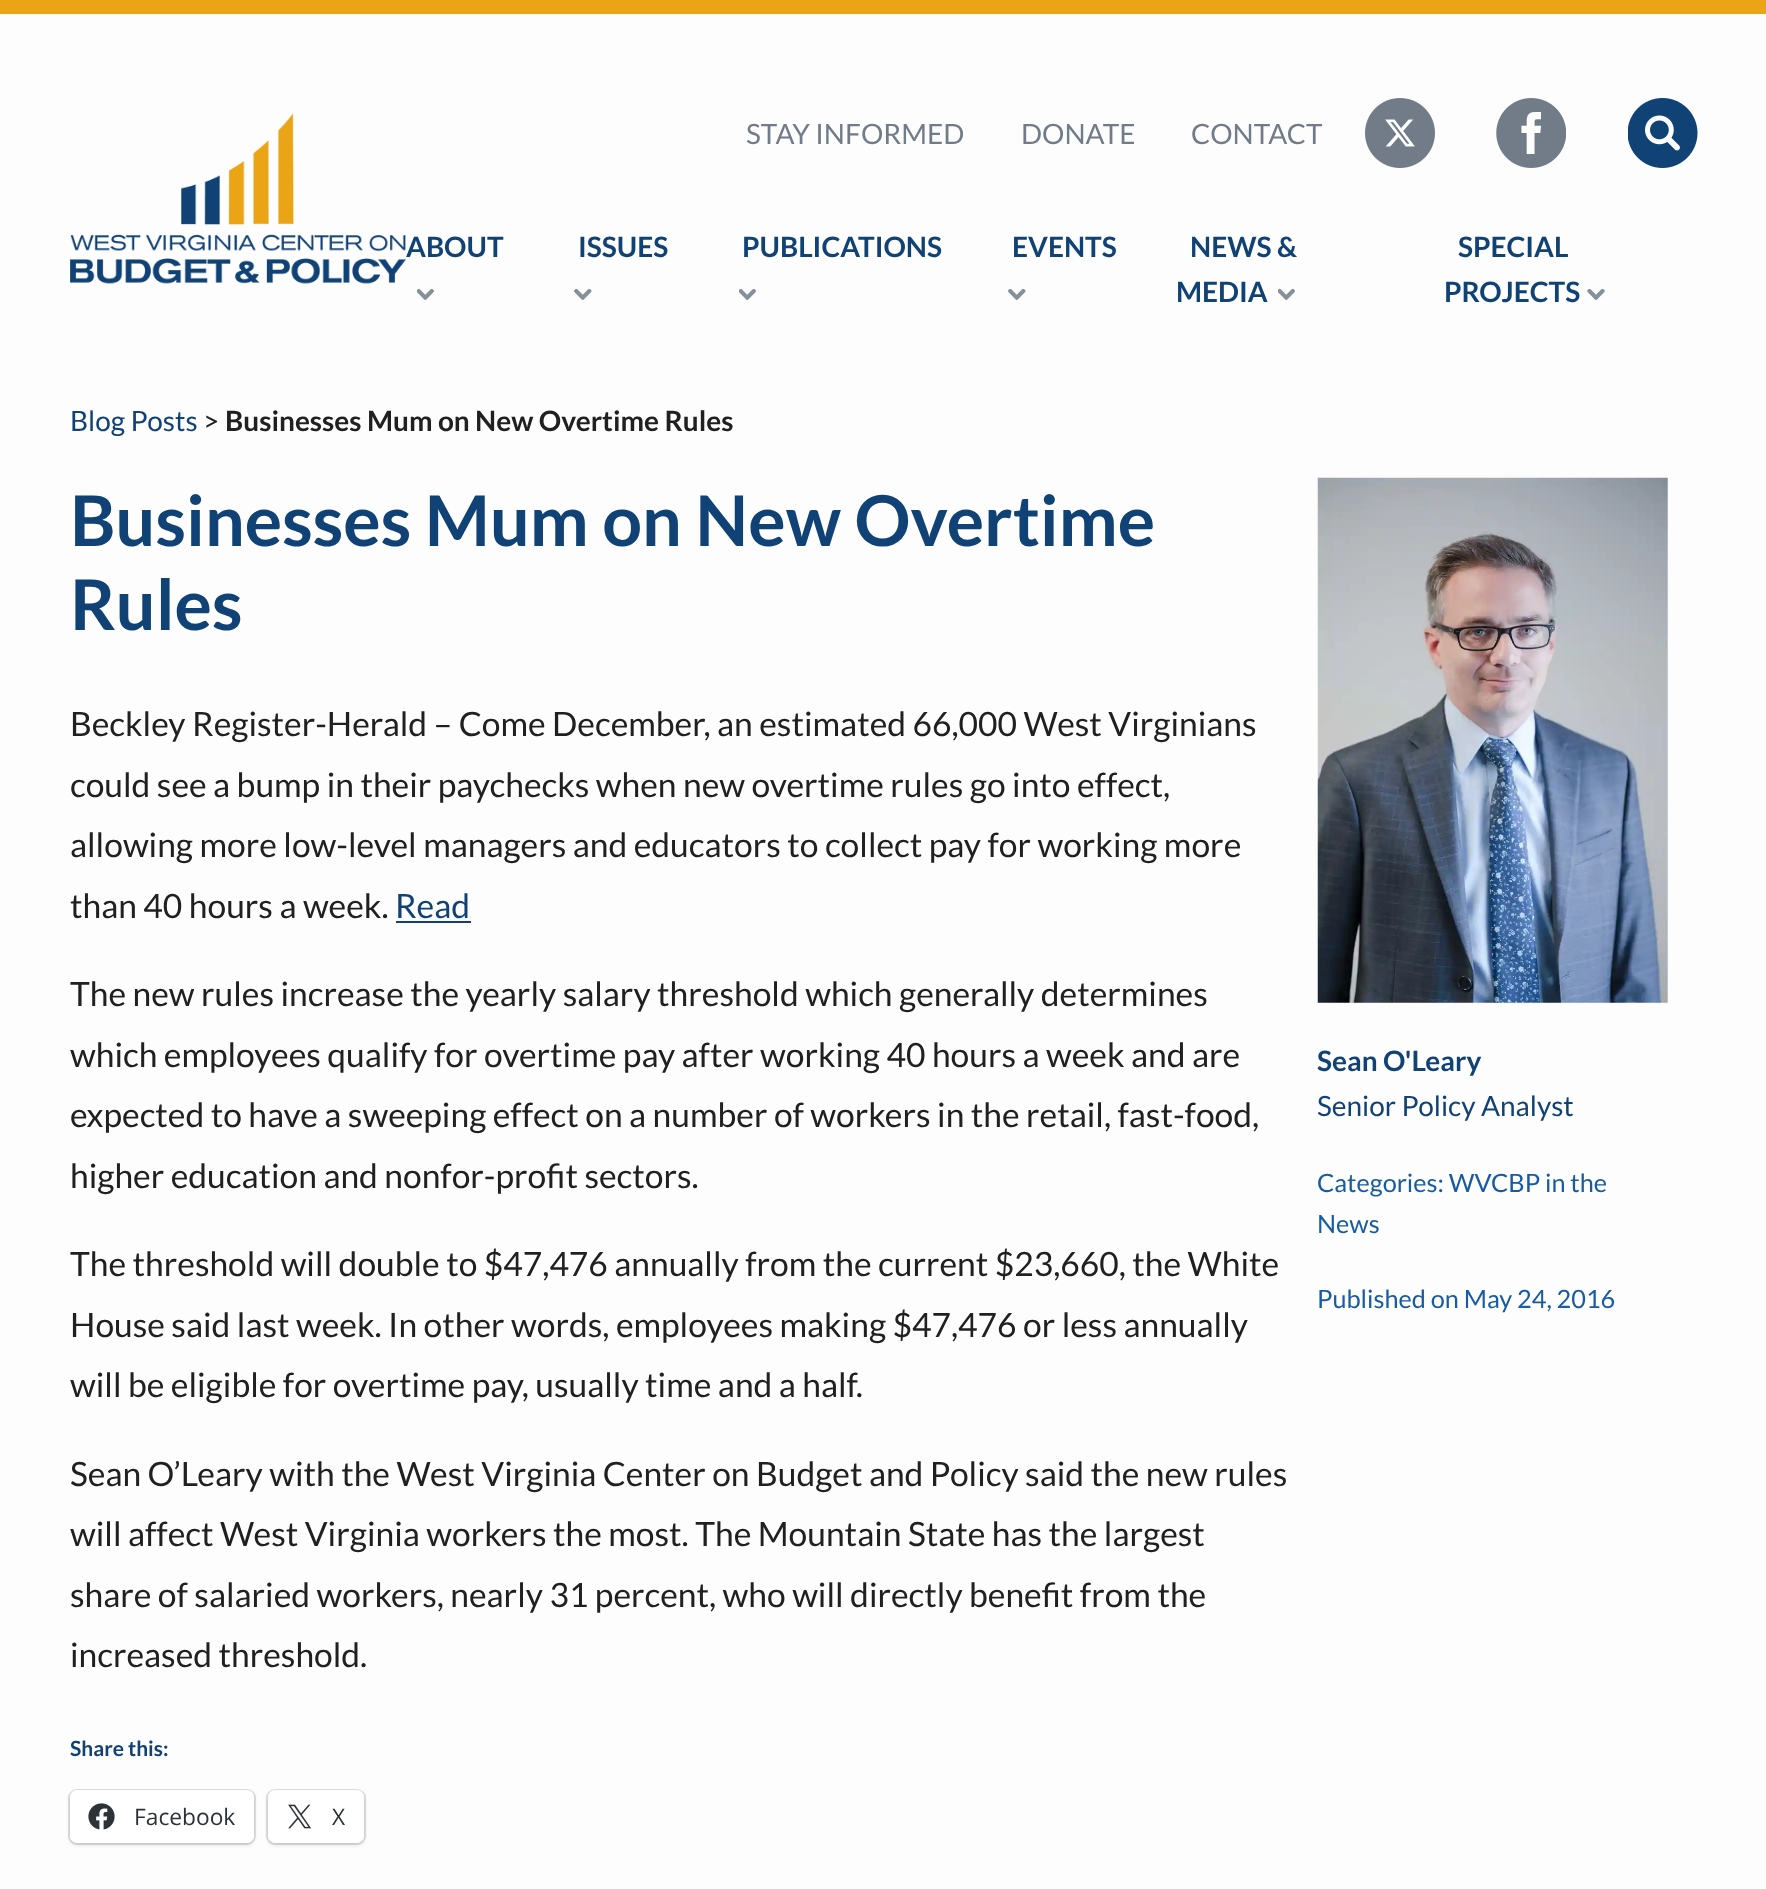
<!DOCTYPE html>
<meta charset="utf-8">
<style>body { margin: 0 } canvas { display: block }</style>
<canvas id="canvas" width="1766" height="1889"></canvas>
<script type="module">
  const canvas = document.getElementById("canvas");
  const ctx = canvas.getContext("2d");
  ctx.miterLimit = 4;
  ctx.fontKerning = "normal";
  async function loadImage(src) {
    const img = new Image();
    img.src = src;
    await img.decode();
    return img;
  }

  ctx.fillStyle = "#fdfdfd";
  ctx.fillRect(0, 0, 1766, 1889);
  ctx.fillStyle = "#eba416";
  ctx.fillRect(0, 0, 1766, 14);
  ctx.drawImage(await loadImage("img1.png"), 70, 113, 336, 171);
  ctx.font = "28px Lato";
  ctx.fillStyle = "#717c88";
  ctx.fillText("STAY INFORMED", 746, 144);
  ctx.fillText("DONATE", 1021, 144);
  ctx.fillText("CONTACT", 1191, 144);
  ctx.drawImage(await loadImage("img2.png"), 1365, 98, 70, 70);
  ctx.drawImage(await loadImage("img3.png"), 1496, 98, 70, 70);
  ctx.drawImage(await loadImage("img4.png"), 1628, 98, 70, 70);
  ctx.font = "bold 28px Lato";
  ctx.fillStyle = "#114276";
  ctx.fillText("ABOUT", 406, 257);
  ctx.drawImage(await loadImage("img5.png"), 417, 289, 17, 11);
  ctx.fillText("ISSUES", 578, 257);
  ctx.drawImage(await loadImage("img6.png"), 574, 289, 18, 11);
  ctx.fillText("PUBLICATIONS", 742, 257);
  ctx.drawImage(await loadImage("img5.png"), 739, 289, 17, 11);
  ctx.fillText("EVENTS", 1012, 257);
  ctx.drawImage(await loadImage("img6.png"), 1008, 289, 18, 11);
  ctx.fillText("NEWS &", 1190, 257);
  ctx.fillText("MEDIA", 1176, 302);
  ctx.drawImage(await loadImage("img5.png"), 1278, 289, 17, 11);
  ctx.fillText("SPECIAL", 1458, 257);
  ctx.fillText("PROJECTS", 1444, 302);
  ctx.drawImage(await loadImage("img7.png"), 1587, 289, 18, 11);
  ctx.font = "28px Lato";
  ctx.fillText("Blog Posts", 70, 431);
  ctx.fillStyle = "#202020";
  ctx.fillText(">", 203, 431);
  ctx.font = "bold 28px Lato";
  ctx.fillText("Businesses Mum on New Overtime Rules", 225, 431);
  ctx.font = "bold 70px Lato";
  ctx.fillStyle = "#114276";
  ctx.fillText("Businesses Mum on New Overtime", 70, 546);
  ctx.fillText("Rules", 70, 630);
  ctx.font = "33.6px Lato";
  ctx.fillStyle = "#202020";
  ctx.fillText("Beckley Register-Herald – Come December, an estimated 66,000 West Virginians", 70, 736);
  ctx.fillText("could see a bump in their paychecks when new overtime rules go into effect,", 70, 797);
  ctx.fillText("allowing more low-level managers and educators to collect pay for working more", 70, 857);
  ctx.fillText("than 40 hours a week.", 70, 918);
  ctx.fillStyle = "#114276";
  ctx.fillText("Read", 395, 918);
  ctx.fillRect(396, 921, 75, 2);
  ctx.fillStyle = "#202020";
  ctx.fillText("The new rules increase the yearly salary threshold which generally determines", 70, 1006);
  ctx.fillText("which employees qualify for overtime pay after working 40 hours a week and are", 70, 1067);
  ctx.fillText("expected to have a sweeping effect on a number of workers in the retail, fast-food,", 70, 1127);
  ctx.fillText("higher education and nonfor-profit sectors.", 70, 1188);
  ctx.fillText("The threshold will double to $47,476 annually from the current $23,660, the White", 70, 1276);
  ctx.fillText("House said last week. In other words, employees making $47,476 or less annually", 70, 1337);
  ctx.fillText("will be eligible for overtime pay, usually time and a half.", 70, 1397);
  ctx.fillText("Sean O’Leary with the West Virginia Center on Budget and Policy said the new rules", 70, 1486);
  ctx.fillText("will affect West Virginia workers the most. The Mountain State has the largest", 70, 1546);
  ctx.fillText("share of salaried workers, nearly 31 percent, who will directly benefit from the", 70, 1607);
  ctx.fillText("increased threshold.", 70, 1667);
  ctx.font = "bold 21px Lato";
  ctx.fillStyle = "#114276";
  ctx.fillText("Share this:", 70, 1756);
  ctx.beginPath();
  ctx.roundRect(69, 1790, 186, 54, 8);
  ctx.strokeStyle = "#dfdfdf";
  ctx.lineWidth = 2;
  ctx.stroke();
  ctx.fillStyle = "rgba(0, 0, 0, 0.12)";
  ctx.filter = "blur(2px)";
  ctx.beginPath();
  ctx.roundRect(70, 1792, 184, 53, 7);
  ctx.fill();
  ctx.filter = "none";
  ctx.fillStyle = "#ffffff";
  ctx.beginPath();
  ctx.roundRect(70, 1790, 184, 53, 7);
  ctx.fill();
  ctx.drawImage(await loadImage("img8.png"), 88, 1803, 27, 27);
  ctx.font = "22.75px Open Sans";
  ctx.fillStyle = "#2c3338";
  ctx.fillText("Facebook", 134, 1825);
  ctx.beginPath();
  ctx.roundRect(267, 1790, 98, 54, 8);
  ctx.stroke();
  ctx.fillStyle = "rgba(0, 0, 0, 0.12)";
  ctx.filter = "blur(2px)";
  ctx.beginPath();
  ctx.roundRect(268, 1792, 96, 53, 7);
  ctx.fill();
  ctx.filter = "none";
  ctx.fillStyle = "#ffffff";
  ctx.beginPath();
  ctx.roundRect(268, 1790, 96, 53, 7);
  ctx.fill();
  ctx.drawImage(await loadImage("img9.png"), 288, 1804, 24, 25);
  ctx.fillStyle = "#2c3338";
  ctx.fillText("X", 332, 1825);
  ctx.drawImage(await loadImage("img10.png"), 1317, 477, 351, 526);
  ctx.font = "bold 28px Lato";
  ctx.fillStyle = "#114276";
  ctx.fillText("Sean O'Leary", 1317, 1071);
  ctx.font = "28px Lato";
  ctx.fillText("Senior Policy Analyst", 1317, 1116);
  ctx.font = "25.25px Lato";
  ctx.fillStyle = "#175ba3";
  ctx.fillText("Categories: WVCBP in the", 1317, 1192);
  ctx.fillText("News", 1317, 1233);
  ctx.fillText("Published on May 24, 2016", 1317, 1308);
</script>
